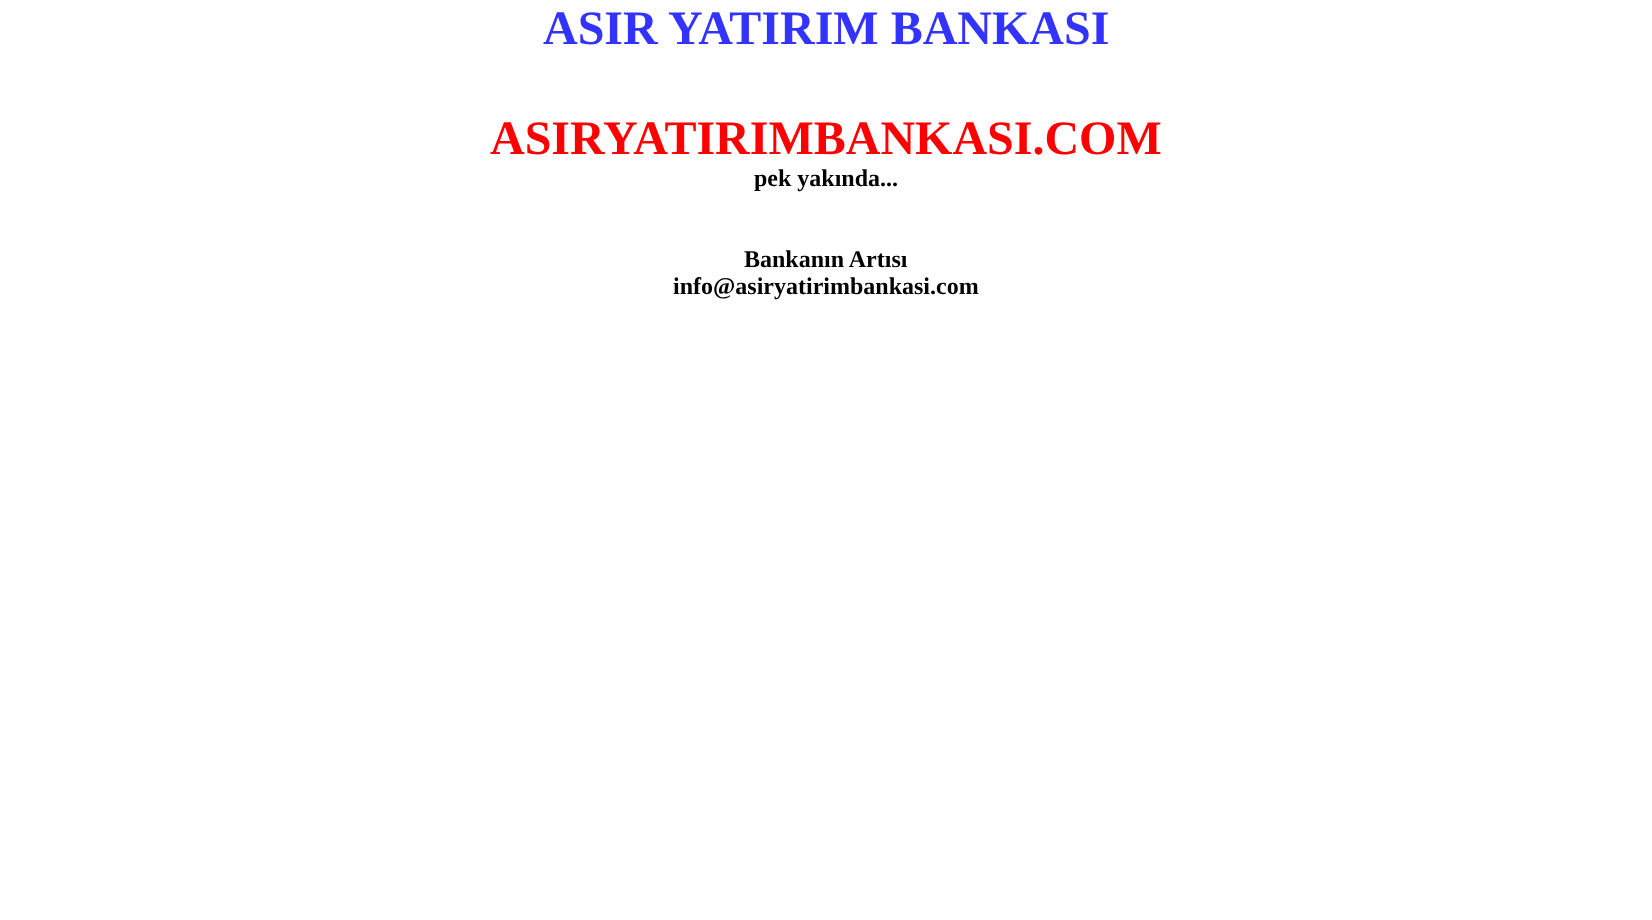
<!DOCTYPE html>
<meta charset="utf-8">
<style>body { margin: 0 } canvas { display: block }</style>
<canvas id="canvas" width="1652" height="920"></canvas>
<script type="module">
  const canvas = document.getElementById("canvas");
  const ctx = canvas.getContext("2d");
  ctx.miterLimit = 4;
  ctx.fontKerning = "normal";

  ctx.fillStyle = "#ffffff";
  ctx.fillRect(0, 0, 1652, 920);
  ctx.font = "bold 48px Liberation Serif";
  ctx.fillStyle = "#3333ff";
  ctx.fillText("ASIR YATIRIM BANKASI", 543, 44);
  ctx.fillStyle = "#ff0000";
  ctx.fillText("ASIRYATIRIMBANKASI.COM", 490, 154);
  ctx.font = "bold 24px Liberation Serif";
  ctx.fillStyle = "#000000";
  ctx.fillText("pek yakında...", 754, 186);
  ctx.fillText("Bankanın Artısı", 744, 267);
  ctx.fillText("info@asiryatirimbankasi.com", 673, 294);
</script>
